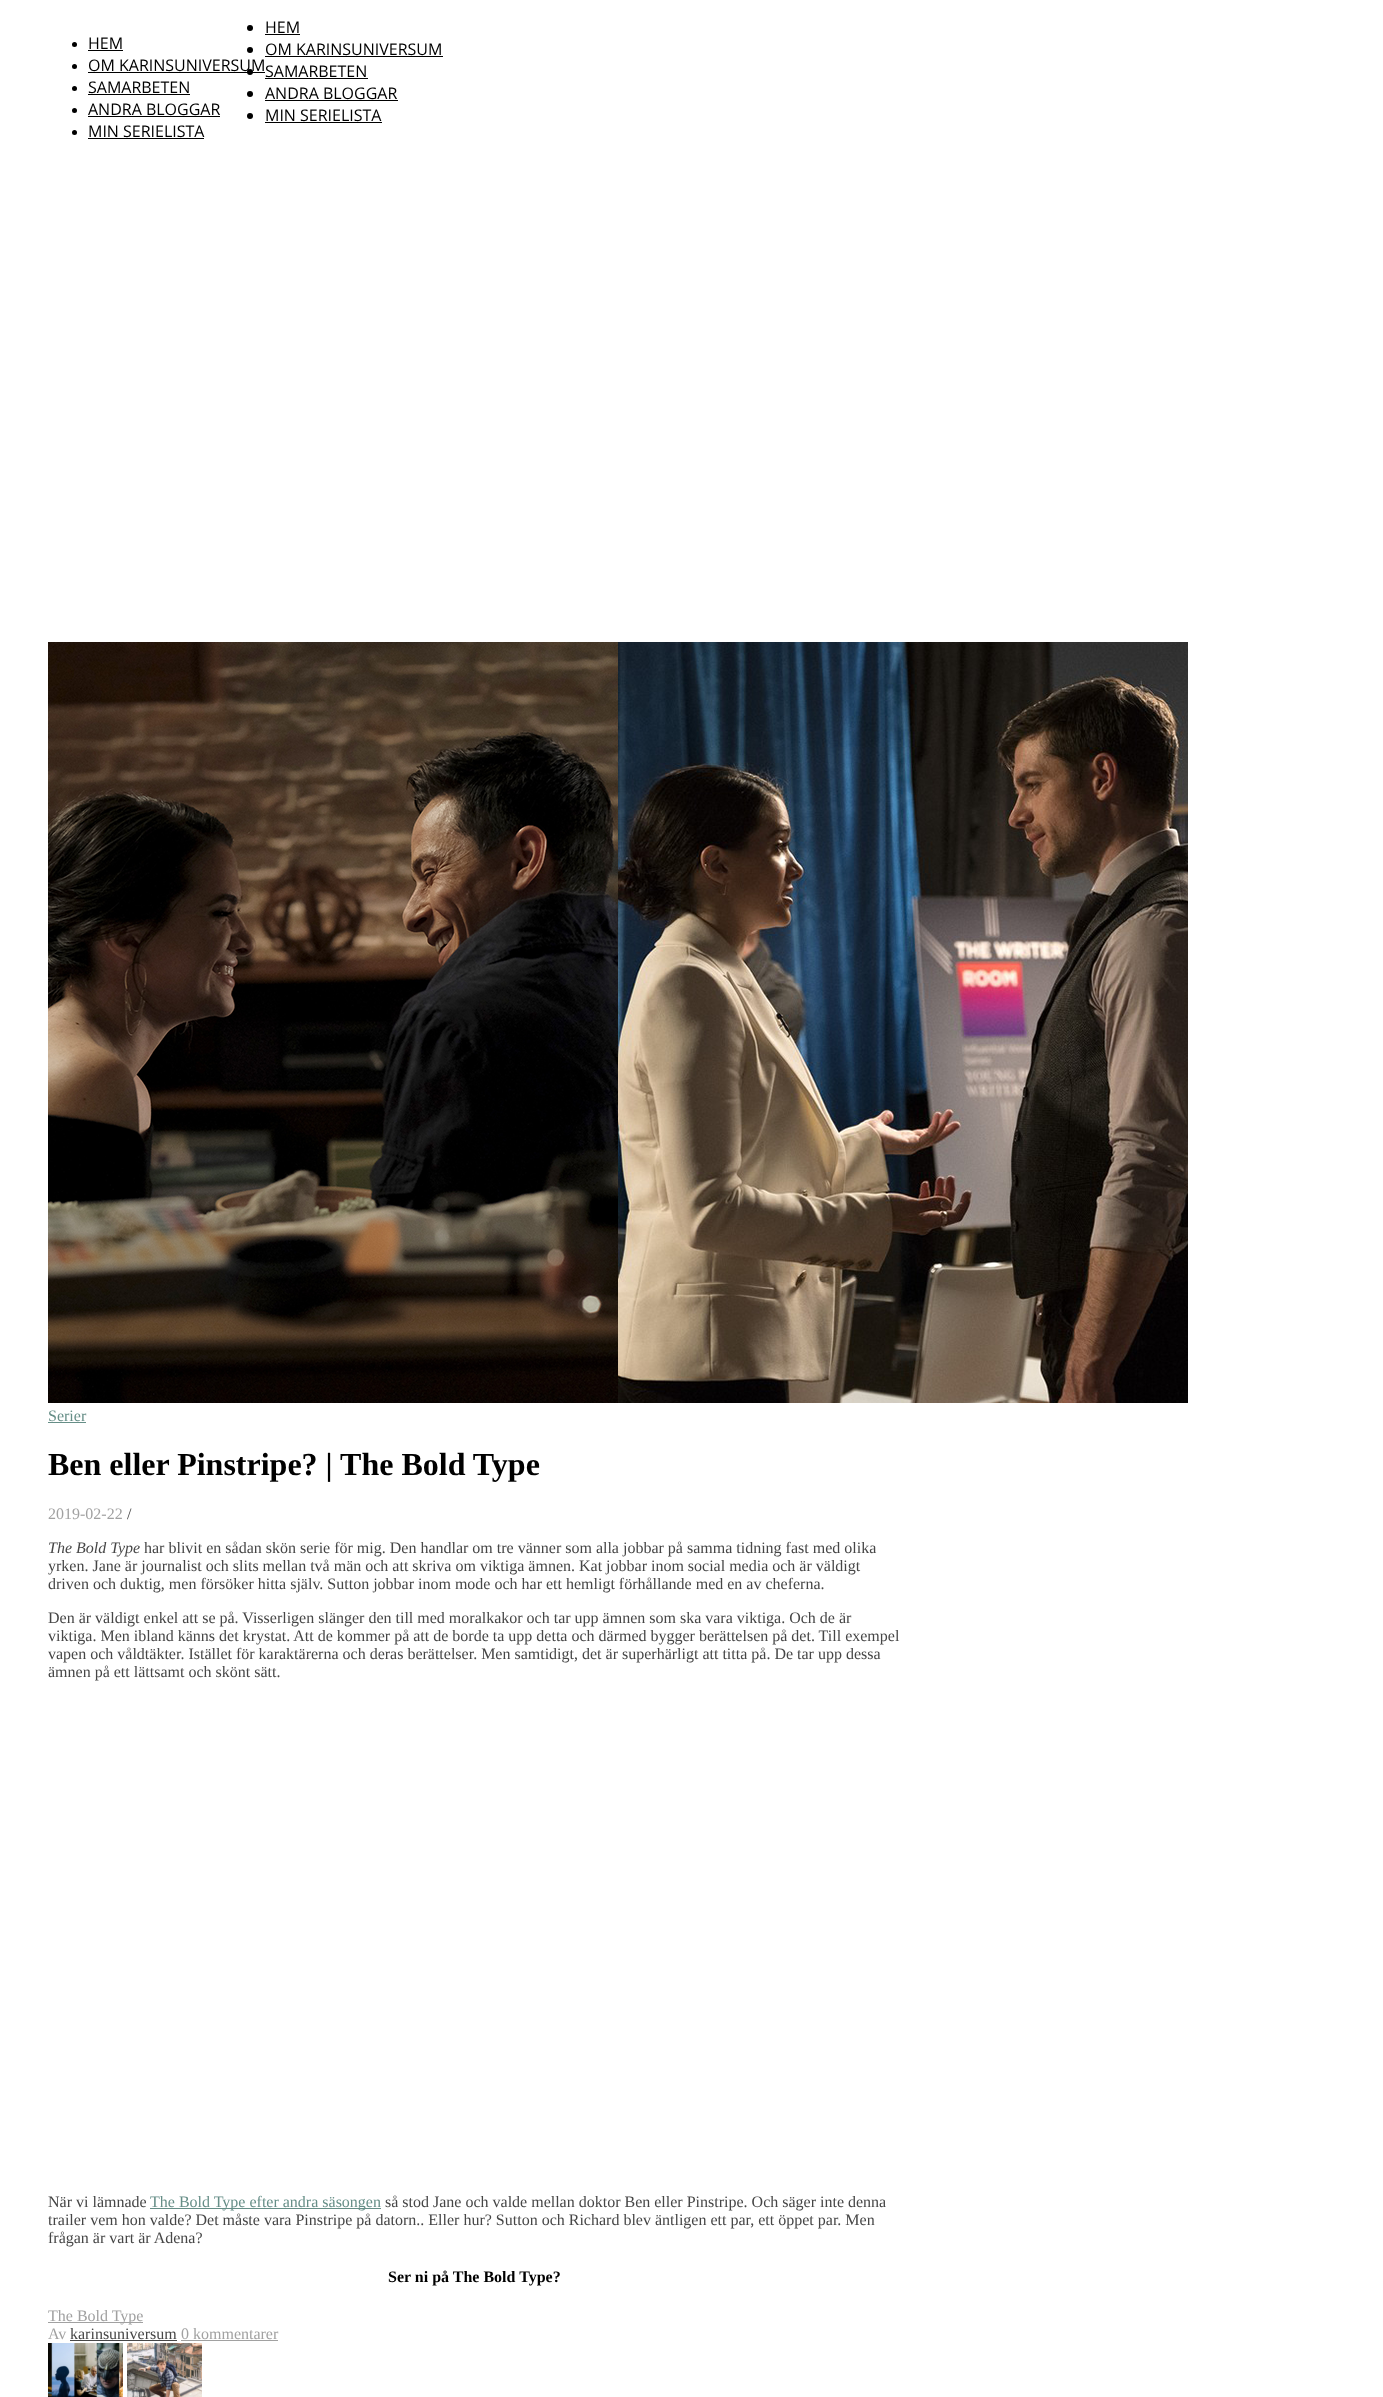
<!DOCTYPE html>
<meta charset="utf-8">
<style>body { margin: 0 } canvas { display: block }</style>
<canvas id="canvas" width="1383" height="2397"></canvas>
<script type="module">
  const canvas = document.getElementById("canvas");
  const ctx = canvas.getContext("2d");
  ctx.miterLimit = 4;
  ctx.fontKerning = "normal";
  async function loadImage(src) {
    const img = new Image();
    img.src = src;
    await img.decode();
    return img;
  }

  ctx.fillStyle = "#ffffff";
  ctx.fillRect(0, 0, 1383, 2397);
  ctx.fillStyle = "#000000";
  ctx.beginPath();
  ctx.arc(74.5, 44.5, 2.5, 0, Math.PI * 2);
  ctx.fill();
  ctx.font = "16px Open Sans";
  ctx.fillText("HEM", 88, 49);
  ctx.fillRect(88, 50, 35, 1);
  ctx.beginPath();
  ctx.arc(74.5, 66.5, 2.5, 0, Math.PI * 2);
  ctx.fill();
  ctx.fillText("OM KARINSUNIVERSUM", 88, 71);
  ctx.fillRect(88, 72, 177, 1);
  ctx.beginPath();
  ctx.arc(74.5, 88.5, 2.5, 0, Math.PI * 2);
  ctx.fill();
  ctx.fillText("SAMARBETEN", 88, 93);
  ctx.fillRect(88, 94, 102, 1);
  ctx.beginPath();
  ctx.arc(74.5, 110.5, 2.5, 0, Math.PI * 2);
  ctx.fill();
  ctx.fillText("ANDRA BLOGGAR", 88, 115);
  ctx.fillRect(88, 116, 132, 1);
  ctx.beginPath();
  ctx.arc(74.5, 132.5, 2.5, 0, Math.PI * 2);
  ctx.fill();
  ctx.fillText("MIN SERIELISTA", 88, 137);
  ctx.fillRect(88, 138, 116, 1);
  ctx.beginPath();
  ctx.arc(250, 28, 3, 0, Math.PI * 2);
  ctx.fill();
  ctx.fillText("HEM", 265, 33);
  ctx.fillRect(265, 34, 35, 1);
  ctx.beginPath();
  ctx.arc(250, 50, 3, 0, Math.PI * 2);
  ctx.fill();
  ctx.fillText("OM KARINSUNIVERSUM", 265, 55);
  ctx.fillRect(265, 56, 178, 1);
  ctx.beginPath();
  ctx.arc(250, 72, 3, 0, Math.PI * 2);
  ctx.fill();
  ctx.fillText("SAMARBETEN", 265, 77);
  ctx.fillRect(265, 78, 103, 1);
  ctx.beginPath();
  ctx.arc(250, 94, 3, 0, Math.PI * 2);
  ctx.fill();
  ctx.fillText("ANDRA BLOGGAR", 265, 99);
  ctx.fillRect(265, 100, 133, 1);
  ctx.beginPath();
  ctx.arc(250, 116, 3, 0, Math.PI * 2);
  ctx.fill();
  ctx.fillText("MIN SERIELISTA", 265, 121);
  ctx.fillRect(265, 122, 117, 1);
  ctx.drawImage(await loadImage("img1.png"), 48, 642, 1140, 761);
  ctx.font = "16px Liberation Serif";
  ctx.fillStyle = "#668e87";
  ctx.fillText("Serier", 48, 1421);
  ctx.fillRect(48, 1422, 38, 1);
  ctx.font = "bold 32px Liberation Serif";
  ctx.fillStyle = "#000000";
  ctx.fillText("Ben eller Pinstripe? | The Bold Type", 48, 1475);
  ctx.font = "16px Liberation Serif";
  ctx.fillStyle = "#a1a1a1";
  ctx.fillText("2019-02-22", 48, 1519);
  ctx.fillStyle = "#464646";
  ctx.fillText("/", 127, 1519);
  ctx.font = "italic 16px Liberation Serif";
  ctx.fillText("The Bold Type", 48, 1553);
  ctx.font = "16px Liberation Serif";
  ctx.fillText("har blivit en sådan skön serie för mig. Den handlar om tre vänner som alla jobbar på samma tidning fast med olika", 144, 1553);
  ctx.fillText("yrken. Jane är journalist och slits mellan två män och att skriva om viktiga ämnen. Kat jobbar inom social media och är väldigt", 48, 1571);
  ctx.fillText("driven och duktig, men försöker hitta själv. Sutton jobbar inom mode och har ett hemligt förhållande med en av cheferna.", 48, 1589);
  ctx.fillText("Den är väldigt enkel att se på. Visserligen slänger den till med moralkakor och tar upp ämnen som ska vara viktiga. Och de är", 48, 1623);
  ctx.fillText("viktiga. Men ibland känns det krystat. Att de kommer på att de borde ta upp detta och därmed bygger berättelsen på det. Till exempel", 48, 1641);
  ctx.fillText("vapen och våldtäkter. Istället för karaktärerna och deras berättelser. Men samtidigt, det är superhärligt att titta på. De tar upp dessa", 48, 1659);
  ctx.fillText("ämnen på ett lättsamt och skönt sätt.", 48, 1677);
  ctx.fillText("När vi lämnade", 48, 2207);
  ctx.fillStyle = "#668e87";
  ctx.fillRect(150, 2208, 231, 1);
  ctx.fillText("The Bold Type efter andra säsongen", 150, 2207);
  ctx.fillStyle = "#464646";
  ctx.fillText("så stod Jane och valde mellan doktor Ben eller Pinstripe. Och säger inte denna", 385, 2207);
  ctx.fillText("trailer vem hon valde? Det måste vara Pinstripe på datorn.. Eller hur? Sutton och Richard blev äntligen ett par, ett öppet par. Men", 48, 2225);
  ctx.fillText("frågan är vart är Adena?", 48, 2243);
  ctx.font = "bold 16px Liberation Serif";
  ctx.fillStyle = "#000000";
  ctx.fillText("Ser ni på The Bold Type?", 388, 2282);
  ctx.fillStyle = "#a1a1a1";
  ctx.fillRect(48, 2322, 95, 1);
  ctx.font = "16px Liberation Serif";
  ctx.fillText("The Bold Type", 48, 2321);
  ctx.fillText("Av", 48, 2339);
  ctx.fillStyle = "#464646";
  ctx.fillText("karinsuniversum", 70, 2339);
  ctx.fillRect(70, 2340, 107, 1);
  ctx.fillStyle = "#a1a1a1";
  ctx.fillText("0 kommentarer", 181, 2339);
  ctx.fillRect(181, 2340, 97, 1);
  ctx.drawImage(await loadImage("img2.png"), 48, 2343, 75, 54);
  ctx.drawImage(await loadImage("img3.png"), 127, 2343, 75, 54);
</script>
